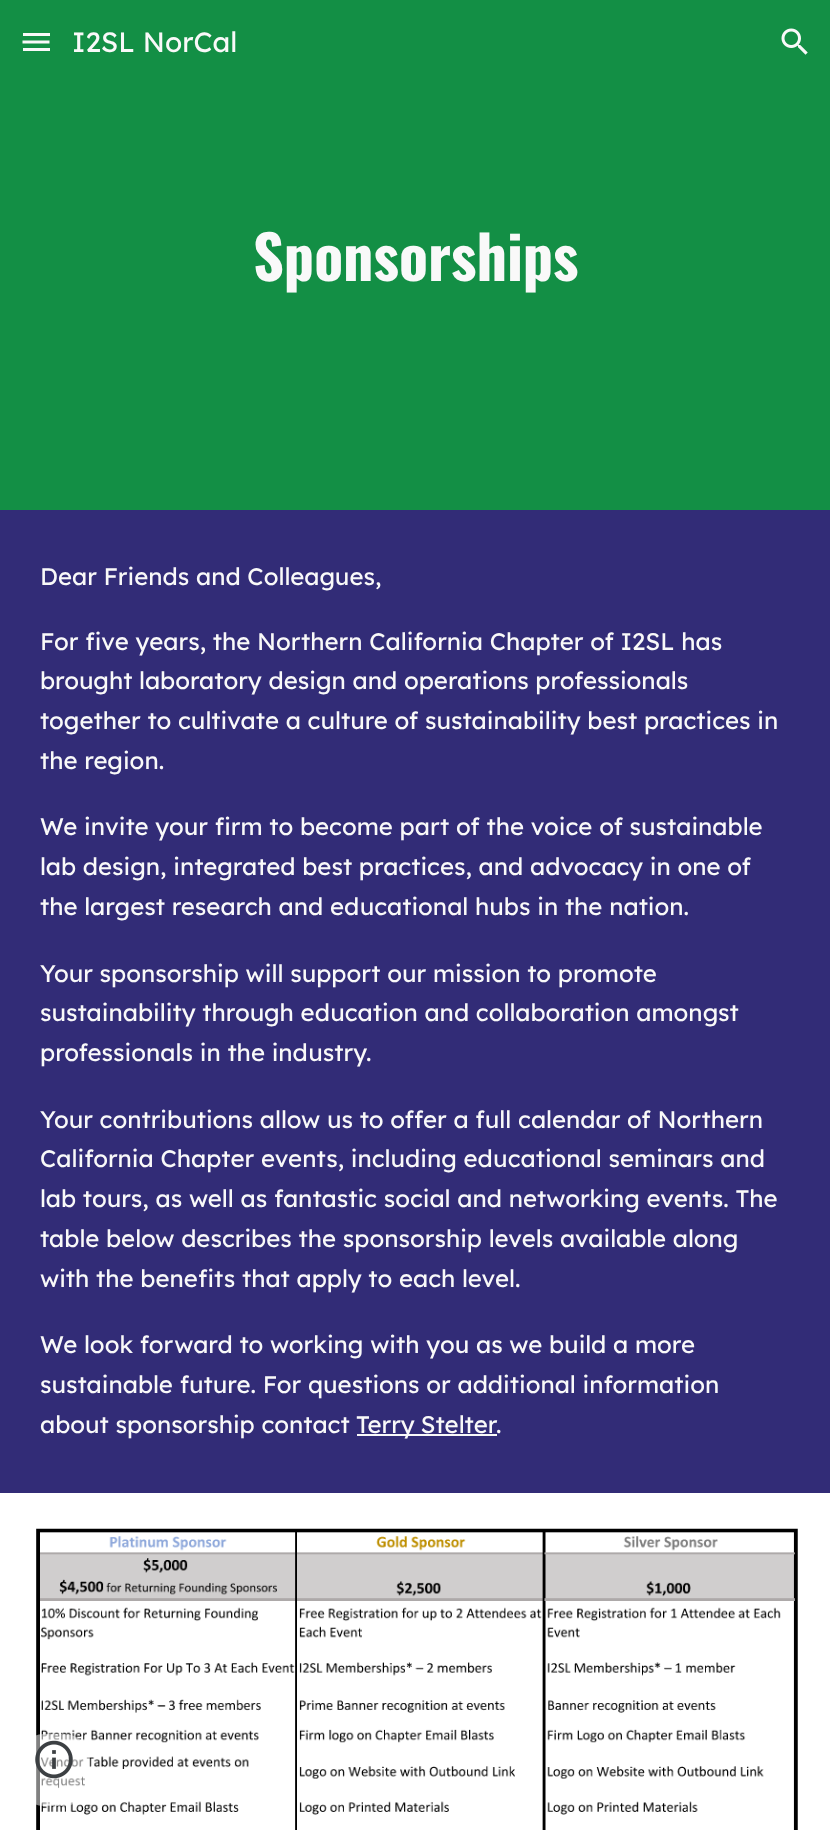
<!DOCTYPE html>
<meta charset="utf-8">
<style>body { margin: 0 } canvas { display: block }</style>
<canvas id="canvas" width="830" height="1830"></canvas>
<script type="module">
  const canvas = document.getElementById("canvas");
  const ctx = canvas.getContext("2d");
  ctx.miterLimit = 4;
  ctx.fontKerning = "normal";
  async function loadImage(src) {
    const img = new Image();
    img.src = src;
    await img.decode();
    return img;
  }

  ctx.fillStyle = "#ffffff";
  ctx.fillRect(0, 0, 830, 1830);
  ctx.fillStyle = "#138f45";
  ctx.fillRect(0, 0, 830, 510);
  ctx.fillStyle = "#f9f9f9";
  ctx.fillRect(23, 33, 27, 3);
  ctx.beginPath();
  ctx.moveTo(22.5, 42);
  ctx.lineTo(49.5, 42);
  ctx.strokeStyle = "#f9f9f9";
  ctx.lineWidth = 3;
  ctx.stroke();
  ctx.fillRect(23, 48, 27, 3);
  ctx.font = "28px Lexend";
  ctx.fillText("I2SL NorCal", 72, 52);
  ctx.drawImage(await loadImage("img1.png"), 781, 28, 27, 27);
  ctx.font = "bold 60px Oswald";
  ctx.fillText("Sponsorships", 253, 281);
  ctx.fillStyle = "#322c77";
  ctx.fillRect(0, 510, 830, 983);
  ctx.font = "24px Lexend";
  ctx.fillStyle = "#f9f9f9";
  ctx.fillText("Dear Friends and Colleagues,", 40, 585);
  ctx.fillText("For five years, the Northern California Chapter of I2SL has", 40, 650);
  ctx.fillText("brought laboratory design and operations professionals", 40, 689);
  ctx.fillText("together to cultivate a culture of sustainability best practices in", 40, 729);
  ctx.fillText("the region.", 40, 769);
  ctx.fillText("We invite your firm to become part of the voice of sustainable", 40, 835);
  ctx.fillText("lab design, integrated best practices, and advocacy in one of", 40, 875);
  ctx.fillText("the largest research and educational hubs in the nation.", 40, 915);
  ctx.fillText("Your sponsorship will support our mission to promote", 40, 982);
  ctx.fillText("sustainability through education and collaboration amongst", 40, 1021);
  ctx.fillText("professionals in the industry.", 40, 1061);
  ctx.fillText("Your contributions allow us to offer a full calendar of Northern", 40, 1128);
  ctx.fillText("California Chapter events, including educational seminars and", 40, 1167);
  ctx.fillText("lab tours, as well as fantastic social and networking events. The", 40, 1207);
  ctx.fillText("table below describes the sponsorship levels available along", 40, 1247);
  ctx.fillText("with the benefits that apply to each level.", 40, 1287);
  ctx.fillText("We look forward to working with you as we build a more", 40, 1353);
  ctx.fillText("sustainable future. For questions or additional information", 40, 1393);
  ctx.fillText("about sponsorship contact", 40, 1433);
  ctx.fillRect(357, 1434, 140, 2);
  ctx.wordSpacing = "-1px";
  ctx.fillText("Terry Stelter", 356, 1433);
  ctx.wordSpacing = "0px";
  ctx.fillText(".", 496, 1433);
  ctx.drawImage(await loadImage("img2.png"), 36, 1528, 762, 302);
  ctx.fillStyle = "rgba(255, 255, 255, 0.5)";
  ctx.beginPath();
  ctx.roundRect(18, 1734, 72, 72, 26);
  ctx.fill();
  ctx.drawImage(await loadImage("img3.png"), 35, 1740, 38, 39);
</script>
